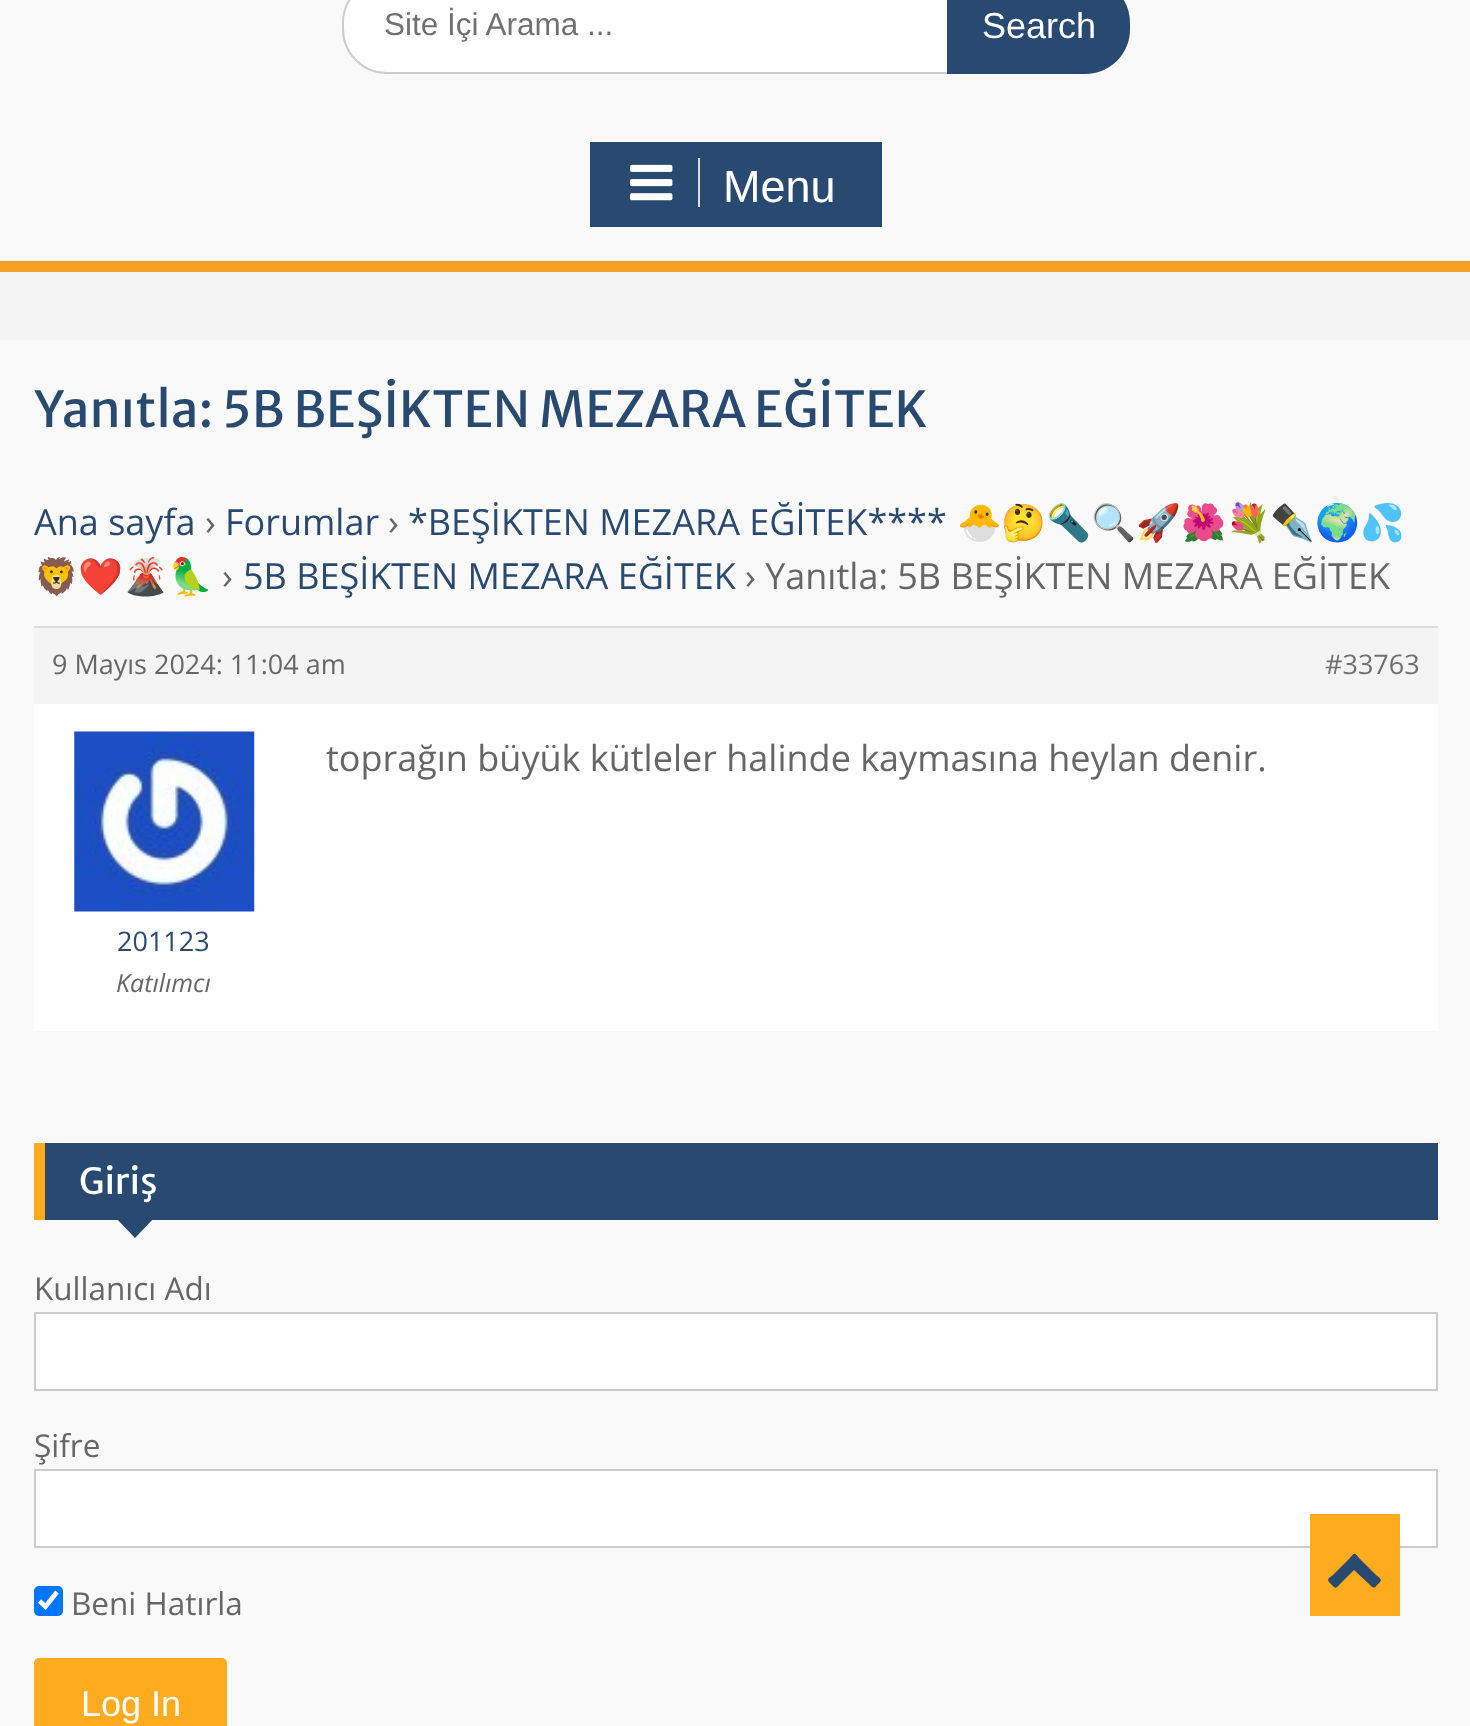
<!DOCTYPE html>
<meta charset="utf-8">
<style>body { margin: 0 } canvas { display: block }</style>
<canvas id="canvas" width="1470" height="1726"></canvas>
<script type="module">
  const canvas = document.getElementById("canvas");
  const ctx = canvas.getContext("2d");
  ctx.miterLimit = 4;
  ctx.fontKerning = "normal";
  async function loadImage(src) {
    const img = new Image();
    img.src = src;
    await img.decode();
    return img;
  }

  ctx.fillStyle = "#f9f9f9";
  ctx.fillRect(0, 0, 1470, 1726);
  ctx.fillStyle = "#ffffff";
  ctx.beginPath();
  ctx.roundRect(343, -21, 786, 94, 44);
  ctx.fill();
  ctx.strokeStyle = "#cccccc";
  ctx.lineWidth = 2;
  ctx.stroke();
  ctx.font = "31.5px Liberation Sans";
  ctx.fillStyle = "#707070";
  ctx.fillText("Site İçi Arama ...", 384, 35);
  ctx.fillStyle = "#294a70";
  ctx.beginPath();
  ctx.moveTo(947, -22);
  ctx.lineTo(1085, -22);
  ctx.bezierCurveTo(1110, -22, 1130, -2, 1130, 23);
  ctx.lineTo(1130, 29);
  ctx.bezierCurveTo(1130, 54, 1110, 74, 1085, 74);
  ctx.lineTo(947, 74);
  ctx.closePath();
  ctx.fill();
  ctx.font = "36px Liberation Sans";
  ctx.fillStyle = "#ffffff";
  ctx.fillText("Search", 982, 38);
  ctx.fillStyle = "#f4a024";
  ctx.fillRect(0, 261, 1470, 11);
  ctx.fillStyle = "#294a70";
  ctx.fillRect(590, 142, 292, 85);
  ctx.fillStyle = "#dddddd";
  ctx.fillRect(698, 158, 2, 49);
  ctx.drawImage(await loadImage("img1.png"), 630, 164, 43, 37);
  ctx.font = "45px Liberation Sans";
  ctx.fillStyle = "#ffffff";
  ctx.fillText("Menu", 723, 202);
  ctx.fillStyle = "#f4f4f4";
  ctx.fillRect(0, 272, 1470, 68);
  ctx.font = "49.5px Merriweather Sans";
  ctx.fillStyle = "#294a70";
  ctx.fillText("Yanıtla: 5B BEŞİKTEN MEZARA EĞİTEK", 34, 427);
  ctx.font = "36px Open Sans";
  ctx.fillText("Ana sayfa", 34, 535);
  ctx.fillStyle = "#666666";
  ctx.fillText("›", 205, 535);
  ctx.fillStyle = "#294a70";
  ctx.fillText("Forumlar", 225, 535);
  ctx.fillStyle = "#666666";
  ctx.fillText("›", 388, 535);
  ctx.fillStyle = "#294a70";
  ctx.fillText("*BEŞİKTEN MEZARA EĞİTEK****", 408, 535);
  ctx.font = "36px Noto Color Emoji";
  ctx.fillText("🐣🤔🔦🔍🚀🌺💐✒️🌍💦", 957, 535);
  ctx.save();
  ctx.beginPath();
  ctx.rect(34, 495, 1404, 569);
  ctx.clip();
  ctx.fillText("🦁❤️🌋🦜", 34, 589);
  ctx.restore();
  ctx.font = "36px Open Sans";
  ctx.fillStyle = "#666666";
  ctx.fillText("›", 222, 589);
  ctx.fillStyle = "#294a70";
  ctx.fillText("5B BEŞİKTEN MEZARA EĞİTEK", 243, 589);
  ctx.fillStyle = "#666666";
  ctx.fillText("› Yanıtla: 5B BEŞİKTEN MEZARA EĞİTEK", 745, 589);
  ctx.fillStyle = "#f4f4f4";
  ctx.fillRect(34, 628, 1404, 76);
  ctx.fillStyle = "#dddddd";
  ctx.fillRect(34, 626, 1404, 2);
  ctx.font = "27px Open Sans";
  ctx.fillStyle = "#666666";
  ctx.fillText("9 Mayıs 2024: 11:04 am", 52, 674);
  ctx.fillStyle = "#707070";
  ctx.fillText("#33763", 1325, 674);
  ctx.fillStyle = "#ffffff";
  ctx.fillRect(34, 704, 1404, 327);
  ctx.font = "36px Open Sans";
  ctx.fillStyle = "#666666";
  ctx.fillText("toprağın büyük kütleler halinde kaymasına heylan denir.", 326, 771);
  ctx.drawImage(await loadImage("img2.png"), 74, 731, 181, 181);
  ctx.font = "27px Open Sans";
  ctx.fillStyle = "#294a70";
  ctx.fillText("201123", 117, 951);
  ctx.font = "italic 25px Open Sans";
  ctx.fillStyle = "#666666";
  ctx.fillText("Katılımcı", 116, 992);
  ctx.fillStyle = "#294a70";
  ctx.fillRect(45, 1143, 1393, 77);
  ctx.fillStyle = "#ffab1f";
  ctx.fillRect(34, 1143, 11, 77);
  ctx.font = "36px Merriweather Sans";
  ctx.fillStyle = "#ffffff";
  ctx.fillText("Giriş", 79, 1194);
  ctx.fillStyle = "#294a70";
  ctx.beginPath();
  ctx.moveTo(115, 1217);
  ctx.lineTo(155, 1217);
  ctx.lineTo(135, 1238);
  ctx.closePath();
  ctx.fill();
  ctx.font = "31.5px Open Sans";
  ctx.fillStyle = "#666666";
  ctx.fillText("Kullanıcı Adı", 34, 1300);
  ctx.fillStyle = "#ffffff";
  ctx.beginPath();
  ctx.rect(35, 1313, 1402, 77);
  ctx.fill();
  ctx.stroke();
  ctx.fillStyle = "#666666";
  ctx.fillText("Şifre", 34, 1457);
  ctx.fillStyle = "#ffffff";
  ctx.beginPath();
  ctx.rect(35, 1470, 1402, 77);
  ctx.fill();
  ctx.stroke();
  ctx.fillStyle = "#0075ff";
  ctx.beginPath();
  ctx.roundRect(34, 1586, 29, 30, 5);
  ctx.fill();
  ctx.beginPath();
  ctx.moveTo(39.5, 1601);
  ctx.lineTo(45.5, 1606.5);
  ctx.lineTo(57, 1592);
  ctx.strokeStyle = "#ffffff";
  ctx.lineWidth = 4.7;
  ctx.stroke();
  ctx.fillStyle = "#666666";
  ctx.fillText("Beni Hatırla", 71, 1615);
  ctx.fillStyle = "#ffab1f";
  ctx.beginPath();
  ctx.roundRect(34, 1658, 193, 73, 5);
  ctx.fill();
  ctx.font = "36px Liberation Sans";
  ctx.fillStyle = "#ffffff";
  ctx.fillText("Log In", 81, 1716);
  ctx.fillStyle = "#ffab1f";
  ctx.fillRect(1310, 1514, 90, 102);
  ctx.fillStyle = "#294a70";
  ctx.beginPath();
  ctx.moveTo(1380, 1582);
  ctx.bezierCurveTo(1374, 1588, 1375, 1590, 1369, 1584);
  ctx.lineTo(1354, 1570);
  ctx.lineTo(1340, 1584);
  ctx.bezierCurveTo(1335, 1590, 1335, 1588, 1330, 1583);
  ctx.bezierCurveTo(1326, 1579, 1329, 1578, 1333, 1575);
  ctx.lineTo(1349, 1559);
  ctx.bezierCurveTo(1355, 1552, 1354, 1552, 1360, 1559);
  ctx.lineTo(1376, 1575);
  ctx.bezierCurveTo(1377, 1576, 1383, 1579, 1380, 1582);
  ctx.closePath();
  ctx.fill();
</script>
